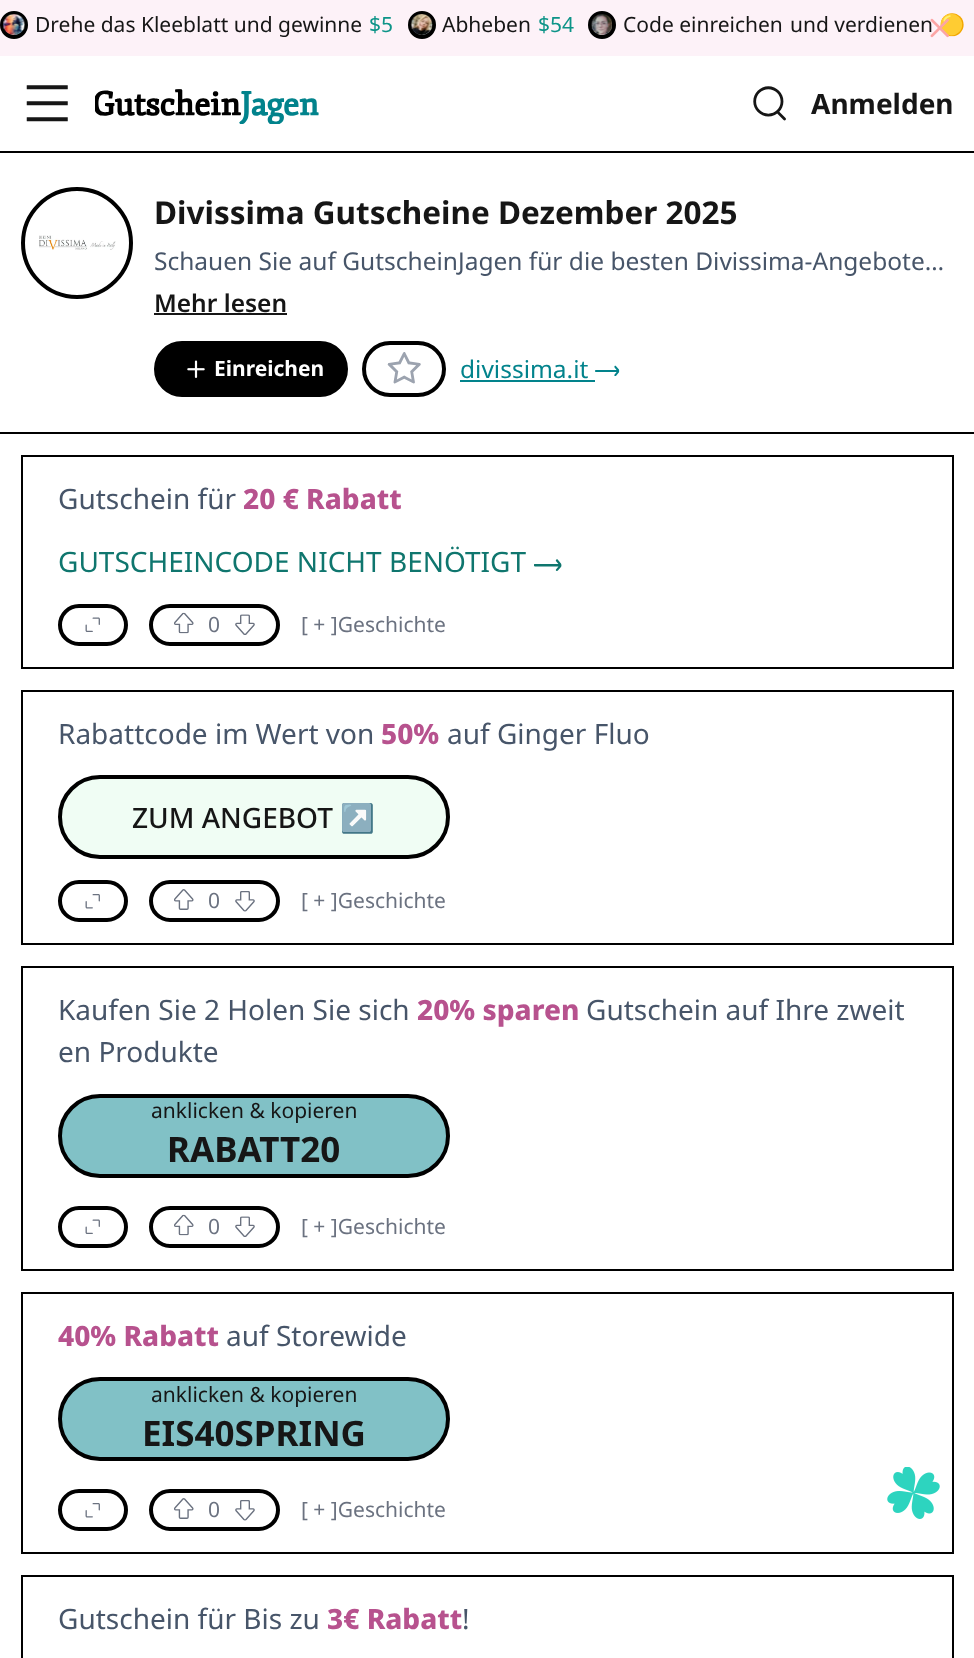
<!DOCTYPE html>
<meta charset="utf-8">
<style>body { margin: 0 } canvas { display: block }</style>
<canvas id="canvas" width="974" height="1658"></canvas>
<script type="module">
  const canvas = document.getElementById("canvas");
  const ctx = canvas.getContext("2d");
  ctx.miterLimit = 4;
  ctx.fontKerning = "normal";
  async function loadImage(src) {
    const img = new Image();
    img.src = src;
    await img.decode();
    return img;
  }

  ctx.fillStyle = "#ffffff";
  ctx.fillRect(0, 0, 974, 1658);
  ctx.fillStyle = "#000000";
  ctx.fillRect(0, 151, 974, 2);
  ctx.fillStyle = "#fdf2f8";
  ctx.fillRect(0, 0, 974, 56);
  ctx.fillStyle = "#ffffff";
  ctx.beginPath();
  ctx.arc(14, 25, 12, 0, Math.PI * 2);
  ctx.fill();
  ctx.strokeStyle = "#000000";
  ctx.lineWidth = 4;
  ctx.stroke();
  ctx.drawImage(await loadImage("img1.png"), 3, 14, 22, 21);
  ctx.font = "21px Noto Sans";
  ctx.fillStyle = "#161616";
  ctx.fillText("Drehe das Kleeblatt und gewinne", 35, 32);
  ctx.fillStyle = "#0d9488";
  ctx.fillText("$5", 369, 32);
  ctx.fillStyle = "#ffffff";
  ctx.beginPath();
  ctx.arc(422, 25, 12, 0, Math.PI * 2);
  ctx.fill();
  ctx.stroke();
  ctx.drawImage(await loadImage("img2.png"), 410, 14, 23, 21);
  ctx.fillStyle = "#161616";
  ctx.fillText("Abheben", 442, 32);
  ctx.fillStyle = "#0d9488";
  ctx.fillText("$54", 538, 32);
  ctx.fillStyle = "#ffffff";
  ctx.beginPath();
  ctx.arc(602, 25, 12, 0, Math.PI * 2);
  ctx.fill();
  ctx.stroke();
  ctx.drawImage(await loadImage("img3.png"), 591, 14, 21, 21);
  ctx.fillStyle = "#161616";
  ctx.fillText("Code einreichen", 623, 32);
  ctx.fillText("und verdienen", 790, 32);
  ctx.font = "21px Noto Color Emoji";
  ctx.fillStyle = "#e879f9";
  ctx.fillText("🟡", 939, 32);
  ctx.drawImage(await loadImage("img4.png"), 930, 18, 19, 20);
  ctx.drawImage(await loadImage("img5.png"), 26, 85, 42, 37);
  ctx.drawImage(await loadImage("img6.png"), 95, 89, 224, 35);
  ctx.drawImage(await loadImage("img7.png"), 753, 86, 33, 35);
  ctx.font = "bold 28px Noto Sans";
  ctx.fillStyle = "#161616";
  ctx.fillText("Anmelden", 811, 114);
  ctx.fillStyle = "#000000";
  ctx.fillRect(0, 432, 974, 2);
  ctx.beginPath();
  ctx.arc(77, 243, 54, 0, Math.PI * 2);
  ctx.stroke();
  ctx.drawImage(await loadImage("img8.png"), 39, 235, 77, 15);
  ctx.font = "bold 31.5px Noto Sans";
  ctx.fillStyle = "#161616";
  ctx.fillText("Divissima Gutscheine Dezember 2025", 154, 224);
  ctx.font = "24.5px Noto Sans";
  ctx.fillStyle = "#475569";
  ctx.fillText("Schauen Sie auf GutscheinJagen für die besten Divissima-Angebote…", 154, 270);
  ctx.font = "600 24.5px Noto Sans";
  ctx.fillStyle = "#161616";
  ctx.fillText("Mehr lesen", 154, 312);
  ctx.fillRect(154, 313, 133, 2);
  ctx.fillStyle = "#000000";
  ctx.beginPath();
  ctx.roundRect(156, 343, 190, 52, 26);
  ctx.fill();
  ctx.stroke();
  ctx.drawImage(await loadImage("img9.png"), 187, 360, 18, 18);
  ctx.font = "bold 21px Noto Sans";
  ctx.fillStyle = "#ffffff";
  ctx.fillText("Einreichen", 214, 376);
  ctx.beginPath();
  ctx.roundRect(364, 343, 80, 52, 26);
  ctx.stroke();
  ctx.drawImage(await loadImage("img10.png"), 387, 352, 34, 32);
  ctx.font = "24.5px Noto Sans";
  ctx.fillStyle = "#02838c";
  ctx.fillText("divissima.it", 460, 378);
  ctx.fillRect(460, 380, 135, 2);
  ctx.drawImage(await loadImage("img11.png"), 595, 365, 25, 11);
  ctx.lineWidth = 2;
  ctx.strokeRect(22, 456, 931, 212);
  ctx.font = "28px Noto Sans";
  ctx.fillStyle = "#475569";
  ctx.fillText("Gutschein für", 58, 509);
  ctx.font = "800 28px Noto Sans";
  ctx.fillStyle = "#b7528e";
  ctx.fillText("20 € Rabatt", 243, 509);
  ctx.font = "28px Noto Sans";
  ctx.fillStyle = "#0f766e";
  ctx.fillText("GUTSCHEINCODE NICHT BENÖTIGT", 58, 572);
  ctx.drawImage(await loadImage("img12.png"), 534, 559, 28, 12);
  ctx.beginPath();
  ctx.roundRect(60, 606, 66, 38, 19);
  ctx.lineWidth = 4;
  ctx.stroke();
  ctx.drawImage(await loadImage("img13.png"), 85, 617, 15, 15);
  ctx.beginPath();
  ctx.roundRect(151, 606, 127, 38, 19);
  ctx.stroke();
  ctx.drawImage(await loadImage("img14.png"), 174, 612, 20, 22);
  ctx.font = "21px Noto Sans";
  ctx.fillStyle = "#6b7280";
  ctx.fillText("0", 208, 632);
  ctx.drawImage(await loadImage("img15.png"), 235, 614, 20, 21);
  ctx.fillText("[ + ]Geschichte", 301, 632);
  ctx.lineWidth = 2;
  ctx.strokeRect(22, 691, 931, 253);
  ctx.font = "28px Noto Sans";
  ctx.fillStyle = "#475569";
  ctx.fillText("Rabattcode im Wert von", 58, 744);
  ctx.font = "800 28px Noto Sans";
  ctx.fillStyle = "#b7528e";
  ctx.fillText("50%", 381, 744);
  ctx.font = "28px Noto Sans";
  ctx.fillStyle = "#475569";
  ctx.fillText("auf Ginger Fluo", 447, 744);
  ctx.fillStyle = "#f0fdf4";
  ctx.beginPath();
  ctx.roundRect(60, 777, 388, 80, 40);
  ctx.fill();
  ctx.lineWidth = 4;
  ctx.stroke();
  ctx.font = "500 28px Noto Sans";
  ctx.fillStyle = "#161616";
  ctx.fillText("ZUM ANGEBOT", 132, 828);
  ctx.font = "28px Noto Color Emoji";
  ctx.fillText("↗", 340, 828);
  ctx.beginPath();
  ctx.roundRect(60, 882, 66, 38, 19);
  ctx.stroke();
  ctx.drawImage(await loadImage("img16.png"), 85, 894, 15, 15);
  ctx.beginPath();
  ctx.roundRect(151, 882, 127, 38, 19);
  ctx.stroke();
  ctx.drawImage(await loadImage("img17.png"), 174, 889, 20, 21);
  ctx.font = "21px Noto Sans";
  ctx.fillStyle = "#6b7280";
  ctx.fillText("0", 208, 908);
  ctx.drawImage(await loadImage("img18.png"), 235, 891, 20, 21);
  ctx.fillText("[ + ]Geschichte", 301, 908);
  ctx.lineWidth = 2;
  ctx.strokeRect(22, 967, 931, 303);
  ctx.font = "28px Noto Sans";
  ctx.fillStyle = "#475569";
  ctx.fillText("Kaufen Sie 2 Holen Sie sich", 58, 1020);
  ctx.font = "800 28px Noto Sans";
  ctx.fillStyle = "#b7528e";
  ctx.fillText("20% sparen", 417, 1020);
  ctx.font = "28px Noto Sans";
  ctx.fillStyle = "#475569";
  ctx.fillText("Gutschein auf Ihre zweit", 586, 1020);
  ctx.fillText("en Produkte", 58, 1062);
  ctx.fillStyle = "#81c1c6";
  ctx.beginPath();
  ctx.roundRect(60, 1096, 388, 80, 40);
  ctx.fill();
  ctx.lineWidth = 4;
  ctx.stroke();
  ctx.font = "21px Noto Sans";
  ctx.fillStyle = "#161616";
  ctx.fillText("anklicken & kopieren", 151, 1118);
  ctx.font = "bold 35px Noto Sans";
  ctx.fillText("RABATT20", 167, 1162);
  ctx.beginPath();
  ctx.roundRect(60, 1208, 66, 38, 19);
  ctx.stroke();
  ctx.drawImage(await loadImage("img13.png"), 85, 1219, 15, 15);
  ctx.beginPath();
  ctx.roundRect(151, 1208, 127, 38, 19);
  ctx.stroke();
  ctx.drawImage(await loadImage("img14.png"), 174, 1214, 20, 22);
  ctx.font = "21px Noto Sans";
  ctx.fillStyle = "#6b7280";
  ctx.fillText("0", 208, 1234);
  ctx.drawImage(await loadImage("img15.png"), 235, 1216, 20, 21);
  ctx.fillText("[ + ]Geschichte", 301, 1234);
  ctx.lineWidth = 2;
  ctx.strokeRect(22, 1293, 931, 260);
  ctx.font = "800 28px Noto Sans";
  ctx.fillStyle = "#b7528e";
  ctx.fillText("40% Rabatt", 58, 1346);
  ctx.font = "28px Noto Sans";
  ctx.fillStyle = "#475569";
  ctx.fillText("auf Storewide", 226, 1346);
  ctx.fillStyle = "#81c1c6";
  ctx.beginPath();
  ctx.roundRect(60, 1379, 388, 80, 40);
  ctx.fill();
  ctx.lineWidth = 4;
  ctx.stroke();
  ctx.font = "21px Noto Sans";
  ctx.fillStyle = "#161616";
  ctx.fillText("anklicken & kopieren", 151, 1402);
  ctx.font = "bold 35px Noto Sans";
  ctx.fillText("EIS40SPRING", 142, 1446);
  ctx.beginPath();
  ctx.roundRect(60, 1491, 66, 38, 19);
  ctx.stroke();
  ctx.drawImage(await loadImage("img16.png"), 85, 1503, 15, 15);
  ctx.beginPath();
  ctx.roundRect(151, 1491, 127, 38, 19);
  ctx.stroke();
  ctx.drawImage(await loadImage("img17.png"), 174, 1498, 20, 21);
  ctx.font = "21px Noto Sans";
  ctx.fillStyle = "#6b7280";
  ctx.fillText("0", 208, 1517);
  ctx.drawImage(await loadImage("img18.png"), 235, 1500, 20, 21);
  ctx.fillText("[ + ]Geschichte", 301, 1517);
  ctx.lineWidth = 2;
  ctx.strokeRect(22, 1576, 931, 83);
  ctx.font = "28px Noto Sans";
  ctx.fillStyle = "#475569";
  ctx.fillText("Gutschein für Bis zu", 58, 1629);
  ctx.font = "800 28px Noto Sans";
  ctx.fillStyle = "#b7528e";
  ctx.fillText("3€ Rabatt", 327, 1629);
  ctx.font = "28px Noto Sans";
  ctx.fillStyle = "#475569";
  ctx.fillText("!", 462, 1629);
  ctx.drawImage(await loadImage("img19.png"), 887, 1467, 53, 52);
</script>
